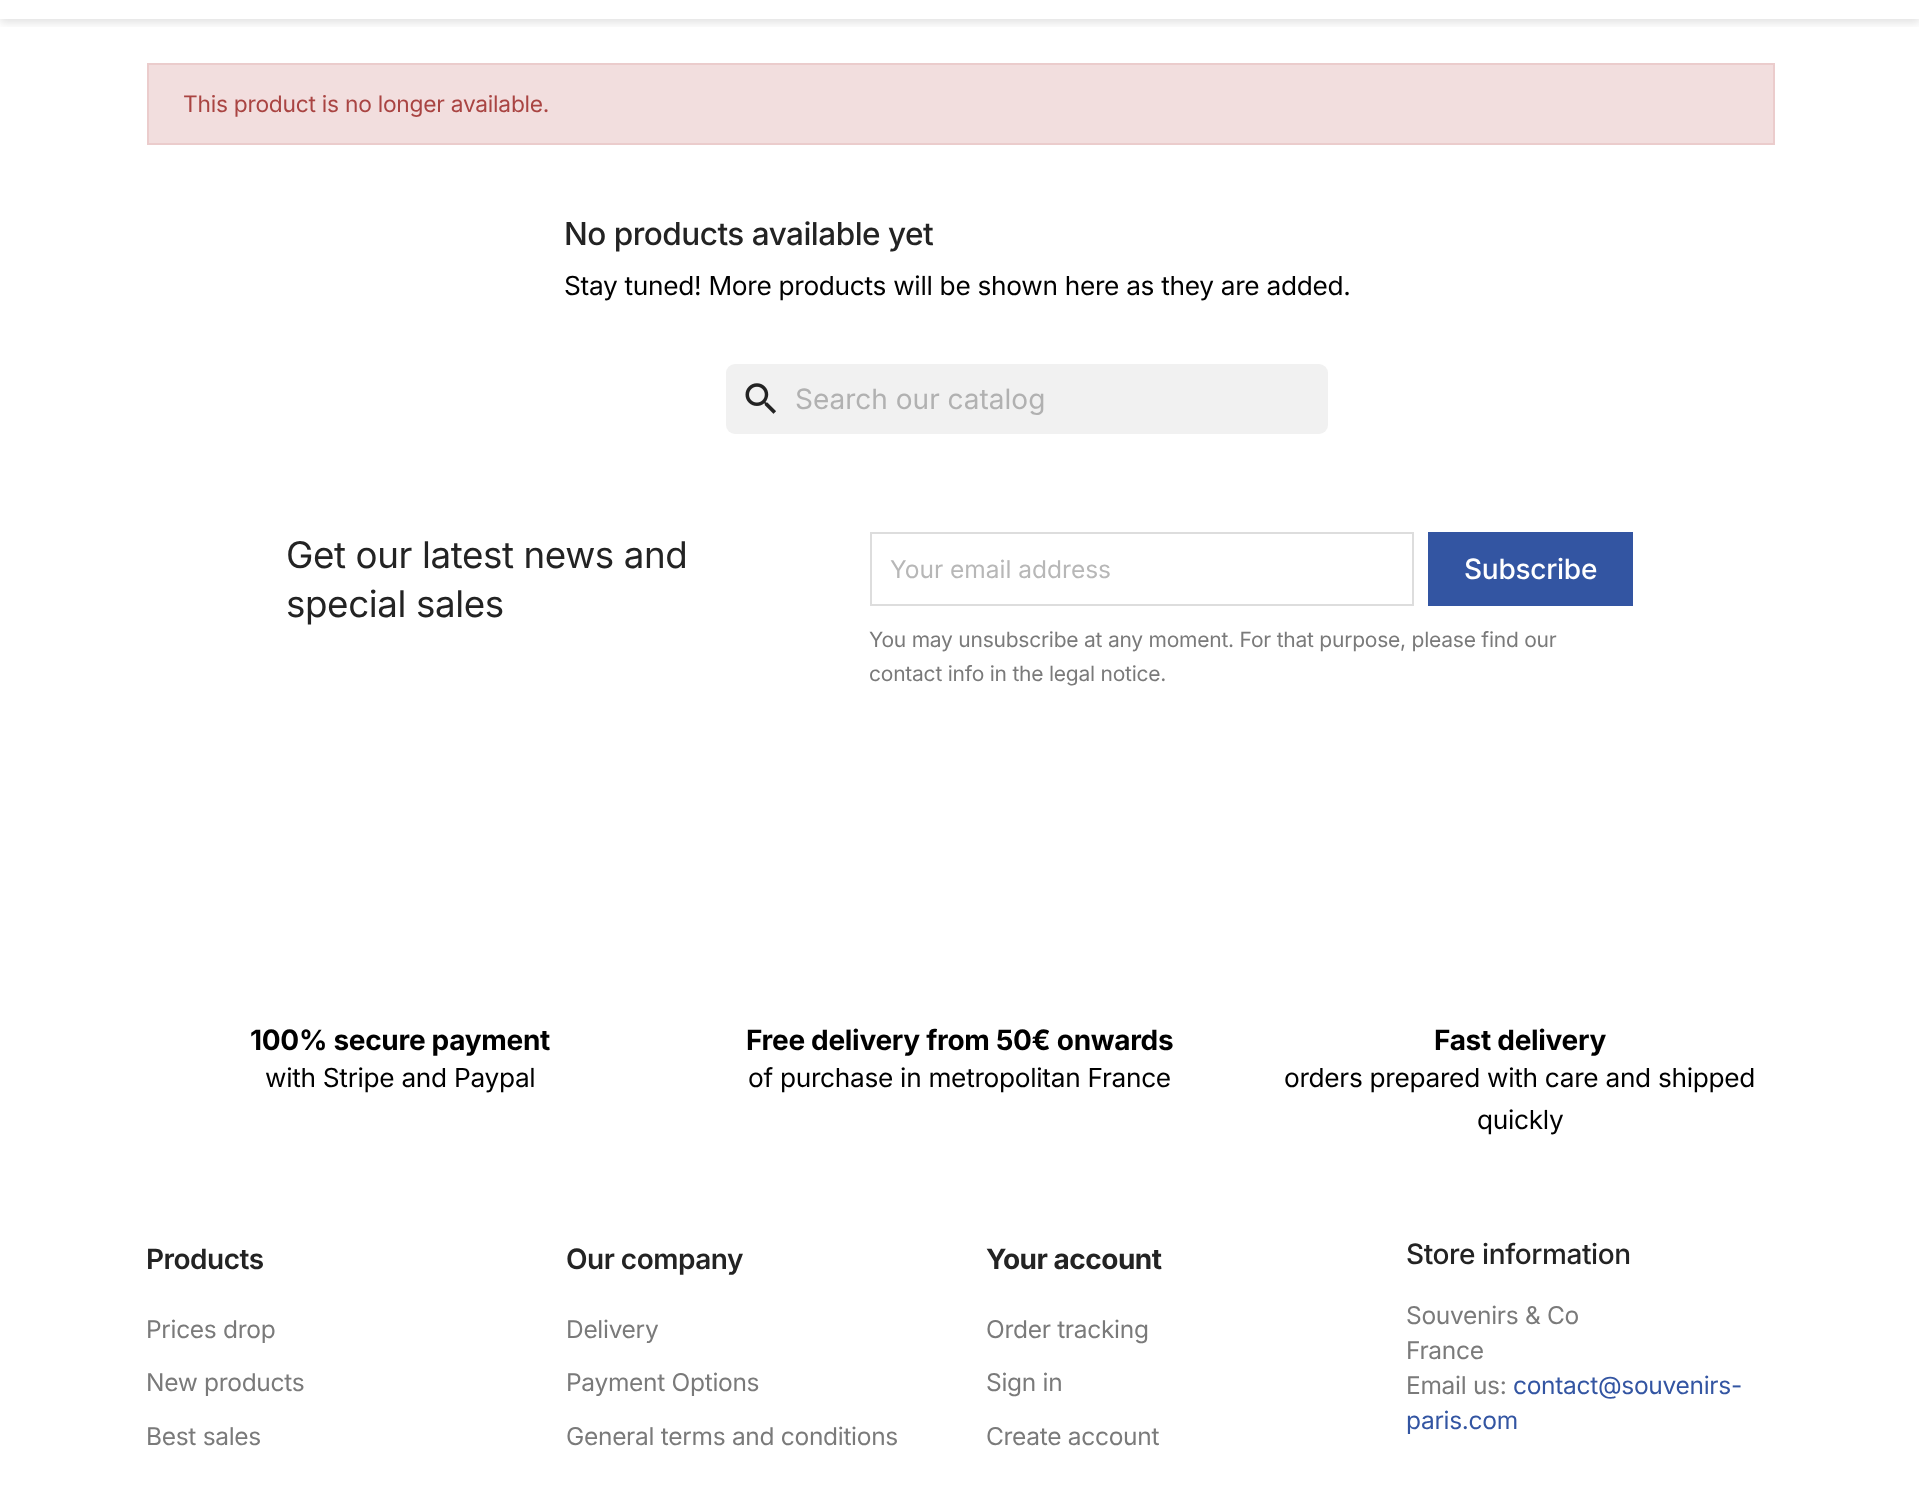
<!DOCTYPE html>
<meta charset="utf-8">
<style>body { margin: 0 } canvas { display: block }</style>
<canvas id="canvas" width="1919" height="1487"></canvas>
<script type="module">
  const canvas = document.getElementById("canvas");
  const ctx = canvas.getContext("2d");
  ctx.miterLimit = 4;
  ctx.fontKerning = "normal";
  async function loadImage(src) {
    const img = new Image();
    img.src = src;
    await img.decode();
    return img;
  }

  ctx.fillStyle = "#ffffff";
  ctx.fillRect(0, 0, 1919, 1487);
  ctx.save();
  ctx.beginPath();
  ctx.rect(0, 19, 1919, 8);
  ctx.clip();
  ctx.fillStyle = "rgba(0, 0, 0, 0.11)";
  ctx.filter = "blur(4.5px)";
  ctx.beginPath();
  ctx.rect(0, -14, 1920, 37);
  ctx.fill();
  ctx.filter = "none";
  ctx.restore();
  ctx.fillStyle = "#f2dede";
  ctx.beginPath();
  ctx.rect(148, 64, 1626, 80);
  ctx.fill();
  ctx.strokeStyle = "#ebcccc";
  ctx.lineWidth = 2;
  ctx.stroke();
  ctx.letterSpacing = "-0.25px";
  ctx.font = "22.75px Inter";
  ctx.fillStyle = "#a94442";
  ctx.fillText("This product is no longer available.", 183, 112);
  ctx.letterSpacing = "-0.5px";
  ctx.font = "500 31.5px Inter";
  ctx.fillStyle = "#232323";
  ctx.fillText("No products available yet", 564, 245);
  ctx.letterSpacing = "-0.3px";
  ctx.font = "26.25px Inter";
  ctx.fillStyle = "#000000";
  ctx.fillText("Stay tuned! More products will be shown here as they are added.", 564, 295);
  ctx.fillStyle = "#f1f1f1";
  ctx.beginPath();
  ctx.roundRect(726, 364, 602, 70, 9);
  ctx.fill();
  ctx.drawImage(await loadImage("img1.png"), 745, 383, 31, 31);
  ctx.letterSpacing = "0px";
  ctx.font = "28px Inter";
  ctx.fillStyle = "#b1b1b1";
  ctx.fillText("Search our catalog", 795, 409);
  ctx.letterSpacing = "-0.4px";
  ctx.font = "36.75px Inter";
  ctx.fillStyle = "#232323";
  ctx.fillText("Get our latest news and", 286, 568);
  ctx.fillText("special sales", 286, 617);
  ctx.strokeStyle = "#dddddd";
  ctx.strokeRect(871, 533, 542, 72);
  ctx.letterSpacing = "0px";
  ctx.font = "24.5px Inter";
  ctx.fillStyle = "#b7b7b7";
  ctx.fillText("Your email address", 890, 578);
  ctx.fillStyle = "#3355a2";
  ctx.fillRect(1428, 532, 205, 74);
  ctx.letterSpacing = "-0.25px";
  ctx.font = "500 28px Inter";
  ctx.fillStyle = "#ffffff";
  ctx.fillText("Subscribe", 1464, 579);
  ctx.letterSpacing = "-0.23px";
  ctx.font = "21px Inter";
  ctx.fillStyle = "#7a7a7a";
  ctx.fillText("You may unsubscribe at any moment. For that purpose, please find our", 869, 647);
  ctx.fillText("contact info in the legal notice.", 869, 681);
  ctx.letterSpacing = "-0.3px";
  ctx.font = "bold 28px Inter";
  ctx.fillStyle = "#000000";
  ctx.fillText("100% secure payment", 250, 1050);
  ctx.font = "26.25px Inter";
  ctx.fillText("with Stripe and Paypal", 265, 1087);
  ctx.font = "bold 28px Inter";
  ctx.fillText("Free delivery from 50€ onwards", 746, 1050);
  ctx.font = "26.25px Inter";
  ctx.fillText("of purchase in metropolitan France", 748, 1087);
  ctx.font = "bold 28px Inter";
  ctx.fillText("Fast delivery", 1434, 1050);
  ctx.font = "26.25px Inter";
  ctx.fillText("orders prepared with care and shipped", 1284, 1087);
  ctx.fillText("quickly", 1477, 1129);
  ctx.letterSpacing = "-0.5px";
  ctx.font = "600 28px Inter";
  ctx.fillStyle = "#232323";
  ctx.fillText("Products", 146, 1269);
  ctx.letterSpacing = "-0.3px";
  ctx.font = "24.5px Inter";
  ctx.fillStyle = "#7a7a7a";
  ctx.fillText("Prices drop", 146, 1338);
  ctx.fillText("New products", 146, 1391);
  ctx.fillText("Best sales", 146, 1445);
  ctx.letterSpacing = "-0.5px";
  ctx.font = "600 28px Inter";
  ctx.fillStyle = "#232323";
  ctx.fillText("Our company", 566, 1269);
  ctx.letterSpacing = "-0.3px";
  ctx.font = "24.5px Inter";
  ctx.fillStyle = "#7a7a7a";
  ctx.fillText("Delivery", 566, 1338);
  ctx.fillText("Payment Options", 566, 1391);
  ctx.fillText("General terms and conditions", 566, 1445);
  ctx.letterSpacing = "-0.5px";
  ctx.font = "bold 28px Inter";
  ctx.fillStyle = "#232323";
  ctx.fillText("Your account", 986, 1269);
  ctx.letterSpacing = "-0.3px";
  ctx.font = "24.5px Inter";
  ctx.fillStyle = "#7a7a7a";
  ctx.fillText("Order tracking", 986, 1338);
  ctx.fillText("Sign in", 986, 1391);
  ctx.fillText("Create account", 986, 1445);
  ctx.letterSpacing = "-0.4px";
  ctx.font = "500 28px Inter";
  ctx.fillStyle = "#232323";
  ctx.fillText("Store information", 1406, 1264);
  ctx.letterSpacing = "-0.3px";
  ctx.font = "24.5px Inter";
  ctx.fillStyle = "#7a7a7a";
  ctx.fillText("Souvenirs & Co", 1406, 1324);
  ctx.fillText("France", 1406, 1359);
  ctx.fillText("Email us:", 1406, 1394);
  ctx.fillStyle = "#3355a2";
  ctx.fillText("contact@souvenirs-", 1513, 1394);
  ctx.fillText("paris.com", 1406, 1429);
</script>
